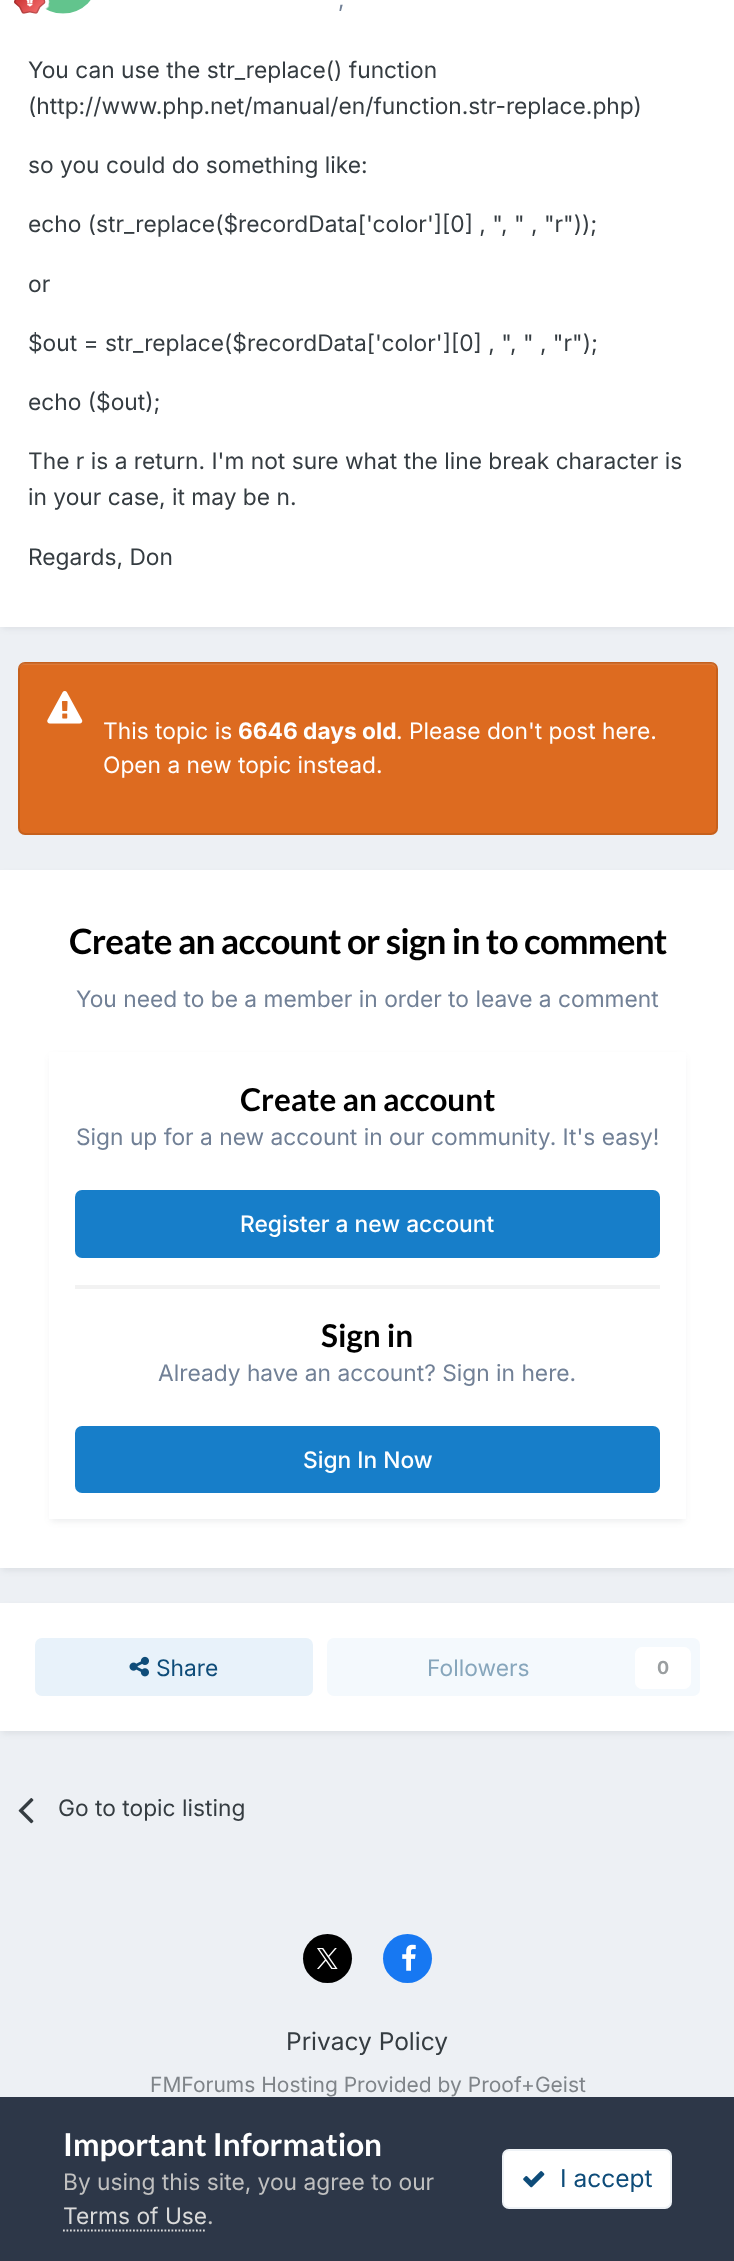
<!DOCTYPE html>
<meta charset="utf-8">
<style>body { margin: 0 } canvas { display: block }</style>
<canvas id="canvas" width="734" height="2261"></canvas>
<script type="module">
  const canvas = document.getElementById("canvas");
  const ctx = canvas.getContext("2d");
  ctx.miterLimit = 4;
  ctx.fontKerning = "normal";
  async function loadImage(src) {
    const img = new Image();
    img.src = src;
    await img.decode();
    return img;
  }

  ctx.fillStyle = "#edf0f4";
  ctx.fillRect(0, 0, 734, 2261);
  ctx.fillStyle = "rgba(45, 55, 72, 0.1)";
  ctx.filter = "blur(3.5px)";
  ctx.beginPath();
  ctx.rect(2, -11, 731, 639);
  ctx.fill();
  ctx.filter = "none";
  ctx.fillStyle = "#ffffff";
  ctx.fillRect(0, 0, 734, 627);
  ctx.drawImage(await loadImage("img2.png"), 45, 0, 46, 14);
  ctx.drawImage(await loadImage("img1.png"), 14, 0, 36, 14);
  ctx.font = "22.75px Inter";
  ctx.fillStyle = "#718096";
  ctx.fillText(",", 338, 7);
  ctx.fillStyle = "#353c41";
  ctx.fillText("You can use the str_replace() function", 28, 78);
  ctx.fillText("(http://www.php.net/manual/en/function.str-replace.php)", 28, 114);
  ctx.fillText("so you could do something like:", 28, 173);
  ctx.fillText("echo (str_replace($recordData['color'][0] , \", \" , \"r\"));", 28, 232);
  ctx.fillText("or", 28, 292);
  ctx.fillText("$out = str_replace($recordData['color'][0] , \", \" , \"r\");", 28, 351);
  ctx.fillText("echo ($out);", 28, 410);
  ctx.fillText("The r is a return. I'm not sure what the line break character is", 28, 469);
  ctx.fillText("in your case, it may be n.", 28, 505);
  ctx.fillText("Regards, Don", 28, 565);
  ctx.fillStyle = "#dd6b20";
  ctx.beginPath();
  ctx.roundRect(18, 662, 700, 173, 7);
  ctx.fill();
  ctx.fillStyle = "#e07a36";
  ctx.beginPath();
  ctx.moveTo(24, 665);
  ctx.lineTo(710, 665);
  ctx.bezierCurveTo(713, 665, 716, 667, 716, 670);
  ctx.lineTo(716, 668);
  ctx.bezierCurveTo(716, 665, 714, 663, 711, 663);
  ctx.lineTo(24, 663);
  ctx.bezierCurveTo(21, 663, 19, 665, 19, 668);
  ctx.lineTo(19, 670);
  ctx.bezierCurveTo(19, 667, 22, 665, 24, 665);
  ctx.closePath();
  ctx.fill();
  ctx.beginPath();
  ctx.roundRect(19, 663, 698, 171, 6);
  ctx.strokeStyle = "rgba(0, 0, 0, 0.1)";
  ctx.lineWidth = 2;
  ctx.stroke();
  ctx.drawImage(await loadImage("img3.png"), 47, 691, 36, 33);
  ctx.fillStyle = "#ffffff";
  ctx.fillText("This topic is", 103, 739);
  ctx.font = "bold 22.75px Inter";
  ctx.fillText("6646 days old", 238, 739);
  ctx.font = "22.75px Inter";
  ctx.fillText(". Please don't post here.", 396, 739);
  ctx.fillText("Open a new topic instead.", 103, 773);
  ctx.fillStyle = "rgba(45, 55, 72, 0.1)";
  ctx.filter = "blur(3.5px)";
  ctx.beginPath();
  ctx.rect(2, 875, 731, 695);
  ctx.fill();
  ctx.filter = "none";
  ctx.fillStyle = "#ffffff";
  ctx.fillRect(0, 870, 734, 698);
  ctx.letterSpacing = "-0.7px";
  ctx.font = "bold 35px Lato";
  ctx.fillStyle = "#000000";
  ctx.fillText("Create an account or sign in to comment", 69, 954);
  ctx.letterSpacing = "0px";
  ctx.font = "22.75px Inter";
  ctx.fillStyle = "#718096";
  ctx.fillText("You need to be a member in order to leave a comment", 76, 1007);
  ctx.save();
  ctx.beginPath();
  ctx.moveTo(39, 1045);
  ctx.lineTo(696, 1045);
  ctx.lineTo(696, 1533);
  ctx.lineTo(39, 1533);
  ctx.closePath();
  ctx.moveTo(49, 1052);
  ctx.lineTo(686, 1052);
  ctx.lineTo(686, 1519);
  ctx.lineTo(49, 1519);
  ctx.closePath();
  ctx.clip("evenodd");
  ctx.fillStyle = "rgba(45, 55, 72, 0.1)";
  ctx.filter = "blur(3.5px)";
  ctx.beginPath();
  ctx.rect(51, 1057, 633, 464);
  ctx.fill();
  ctx.filter = "none";
  ctx.restore();
  ctx.fillStyle = "#f2f2f2";
  ctx.fillRect(75, 1285, 585, 4);
  ctx.font = "bold 31.5px Lato";
  ctx.fillStyle = "#000000";
  ctx.fillText("Create an account", 240, 1111);
  ctx.font = "22.75px Inter";
  ctx.fillStyle = "#718096";
  ctx.fillText("Sign up for a new account in our community. It's easy!", 76, 1145);
  ctx.fillStyle = "#177ec9";
  ctx.beginPath();
  ctx.roundRect(75, 1190, 585, 68, 7);
  ctx.fill();
  ctx.font = "500 22.75px Inter";
  ctx.fillStyle = "#ffffff";
  ctx.fillText("Register a new account", 240, 1232);
  ctx.font = "bold 31.5px Lato";
  ctx.fillStyle = "#000000";
  ctx.fillText("Sign in", 321, 1347);
  ctx.font = "22.75px Inter";
  ctx.fillStyle = "#718096";
  ctx.fillText("Already have an account? Sign in here.", 158, 1381);
  ctx.fillStyle = "#177ec9";
  ctx.beginPath();
  ctx.roundRect(75, 1426, 585, 67, 7);
  ctx.fill();
  ctx.font = "500 22.75px Inter";
  ctx.fillStyle = "#ffffff";
  ctx.fillText("Sign In Now", 303, 1468);
  ctx.fillStyle = "rgba(45, 55, 72, 0.1)";
  ctx.filter = "blur(3.5px)";
  ctx.beginPath();
  ctx.rect(2, 1608, 731, 125);
  ctx.fill();
  ctx.filter = "none";
  ctx.fillStyle = "#ffffff";
  ctx.fillRect(0, 1603, 734, 128);
  ctx.fillStyle = "#e8f2fa";
  ctx.beginPath();
  ctx.roundRect(35, 1638, 278, 58, 7);
  ctx.fill();
  ctx.drawImage(await loadImage("img4.png"), 129, 1656, 20, 21);
  ctx.font = "22.75px Inter";
  ctx.fillStyle = "#0e4c79";
  ctx.fillText("Share", 156, 1676);
  ctx.fillStyle = "#f4f9fd";
  ctx.beginPath();
  ctx.roundRect(327, 1638, 373, 58, 7);
  ctx.fill();
  ctx.fillStyle = "#87a6bc";
  ctx.fillText("Followers", 427, 1676);
  ctx.fillStyle = "#ffffff";
  ctx.beginPath();
  ctx.roundRect(635, 1647, 56, 42, 7);
  ctx.fill();
  ctx.font = "bold 18px Inter";
  ctx.fillStyle = "#9a9ea0";
  ctx.fillText("0", 657, 1674);
  ctx.drawImage(await loadImage("img5.png"), 18, 1798, 16, 26);
  ctx.font = "22.75px Inter";
  ctx.fillStyle = "#353c41";
  ctx.fillText("Go to topic listing", 58, 1816);
  ctx.fillStyle = "#000000";
  ctx.beginPath();
  ctx.arc(327.5, 1958.5, 24.5, 0, Math.PI * 2);
  ctx.fill();
  ctx.drawImage(await loadImage("img6.png"), 317, 1948, 21, 21);
  ctx.fillStyle = "#1778f2";
  ctx.beginPath();
  ctx.arc(407.5, 1958.5, 24.5, 0, Math.PI * 2);
  ctx.fill();
  ctx.drawImage(await loadImage("img7.png"), 402, 1944, 14, 27);
  ctx.font = "24.5px Inter";
  ctx.fillStyle = "#353c41";
  ctx.fillText("Privacy Policy", 286, 2050);
  ctx.font = "21px Inter";
  ctx.fillStyle = "#7f8489";
  ctx.fillText("FMForums Hosting Provided by Proof+Geist", 150, 2092);
  ctx.fillStyle = "#2d3748";
  ctx.fillRect(0, 2097, 734, 164);
  ctx.font = "bold 31.5px Lato";
  ctx.fillStyle = "#ffffff";
  ctx.fillText("Important Information", 63, 2156);
  ctx.font = "22.75px Inter";
  ctx.fillStyle = "#c0c0c0";
  ctx.fillText("By using this site, you agree to our", 63, 2190);
  ctx.fillStyle = "#dadada";
  ctx.fillText("Terms of Use", 63, 2224);
  ctx.beginPath();
  ctx.moveTo(63, 2230.5);
  ctx.lineTo(206.5, 2230.5);
  ctx.strokeStyle = "#dadada";
  ctx.lineWidth = 1.8;
  ctx.setLineDash([1.75, 1.75]);
  ctx.stroke();
  ctx.fillStyle = "#c0c0c0";
  ctx.fillText(".", 207, 2224);
  ctx.fillStyle = "#ffffff";
  ctx.beginPath();
  ctx.roundRect(502, 2149, 170, 60, 7);
  ctx.fill();
  ctx.beginPath();
  ctx.roundRect(503, 2150, 168, 58, 6);
  ctx.strokeStyle = "rgba(14, 76, 121, 0.07)";
  ctx.lineWidth = 2;
  ctx.setLineDash([]);
  ctx.stroke();
  ctx.drawImage(await loadImage("img8.png"), 523, 2171, 22, 17);
  ctx.font = "24.5px Inter";
  ctx.fillStyle = "#0e4c79";
  ctx.fillText("I accept", 560, 2187);
</script>
